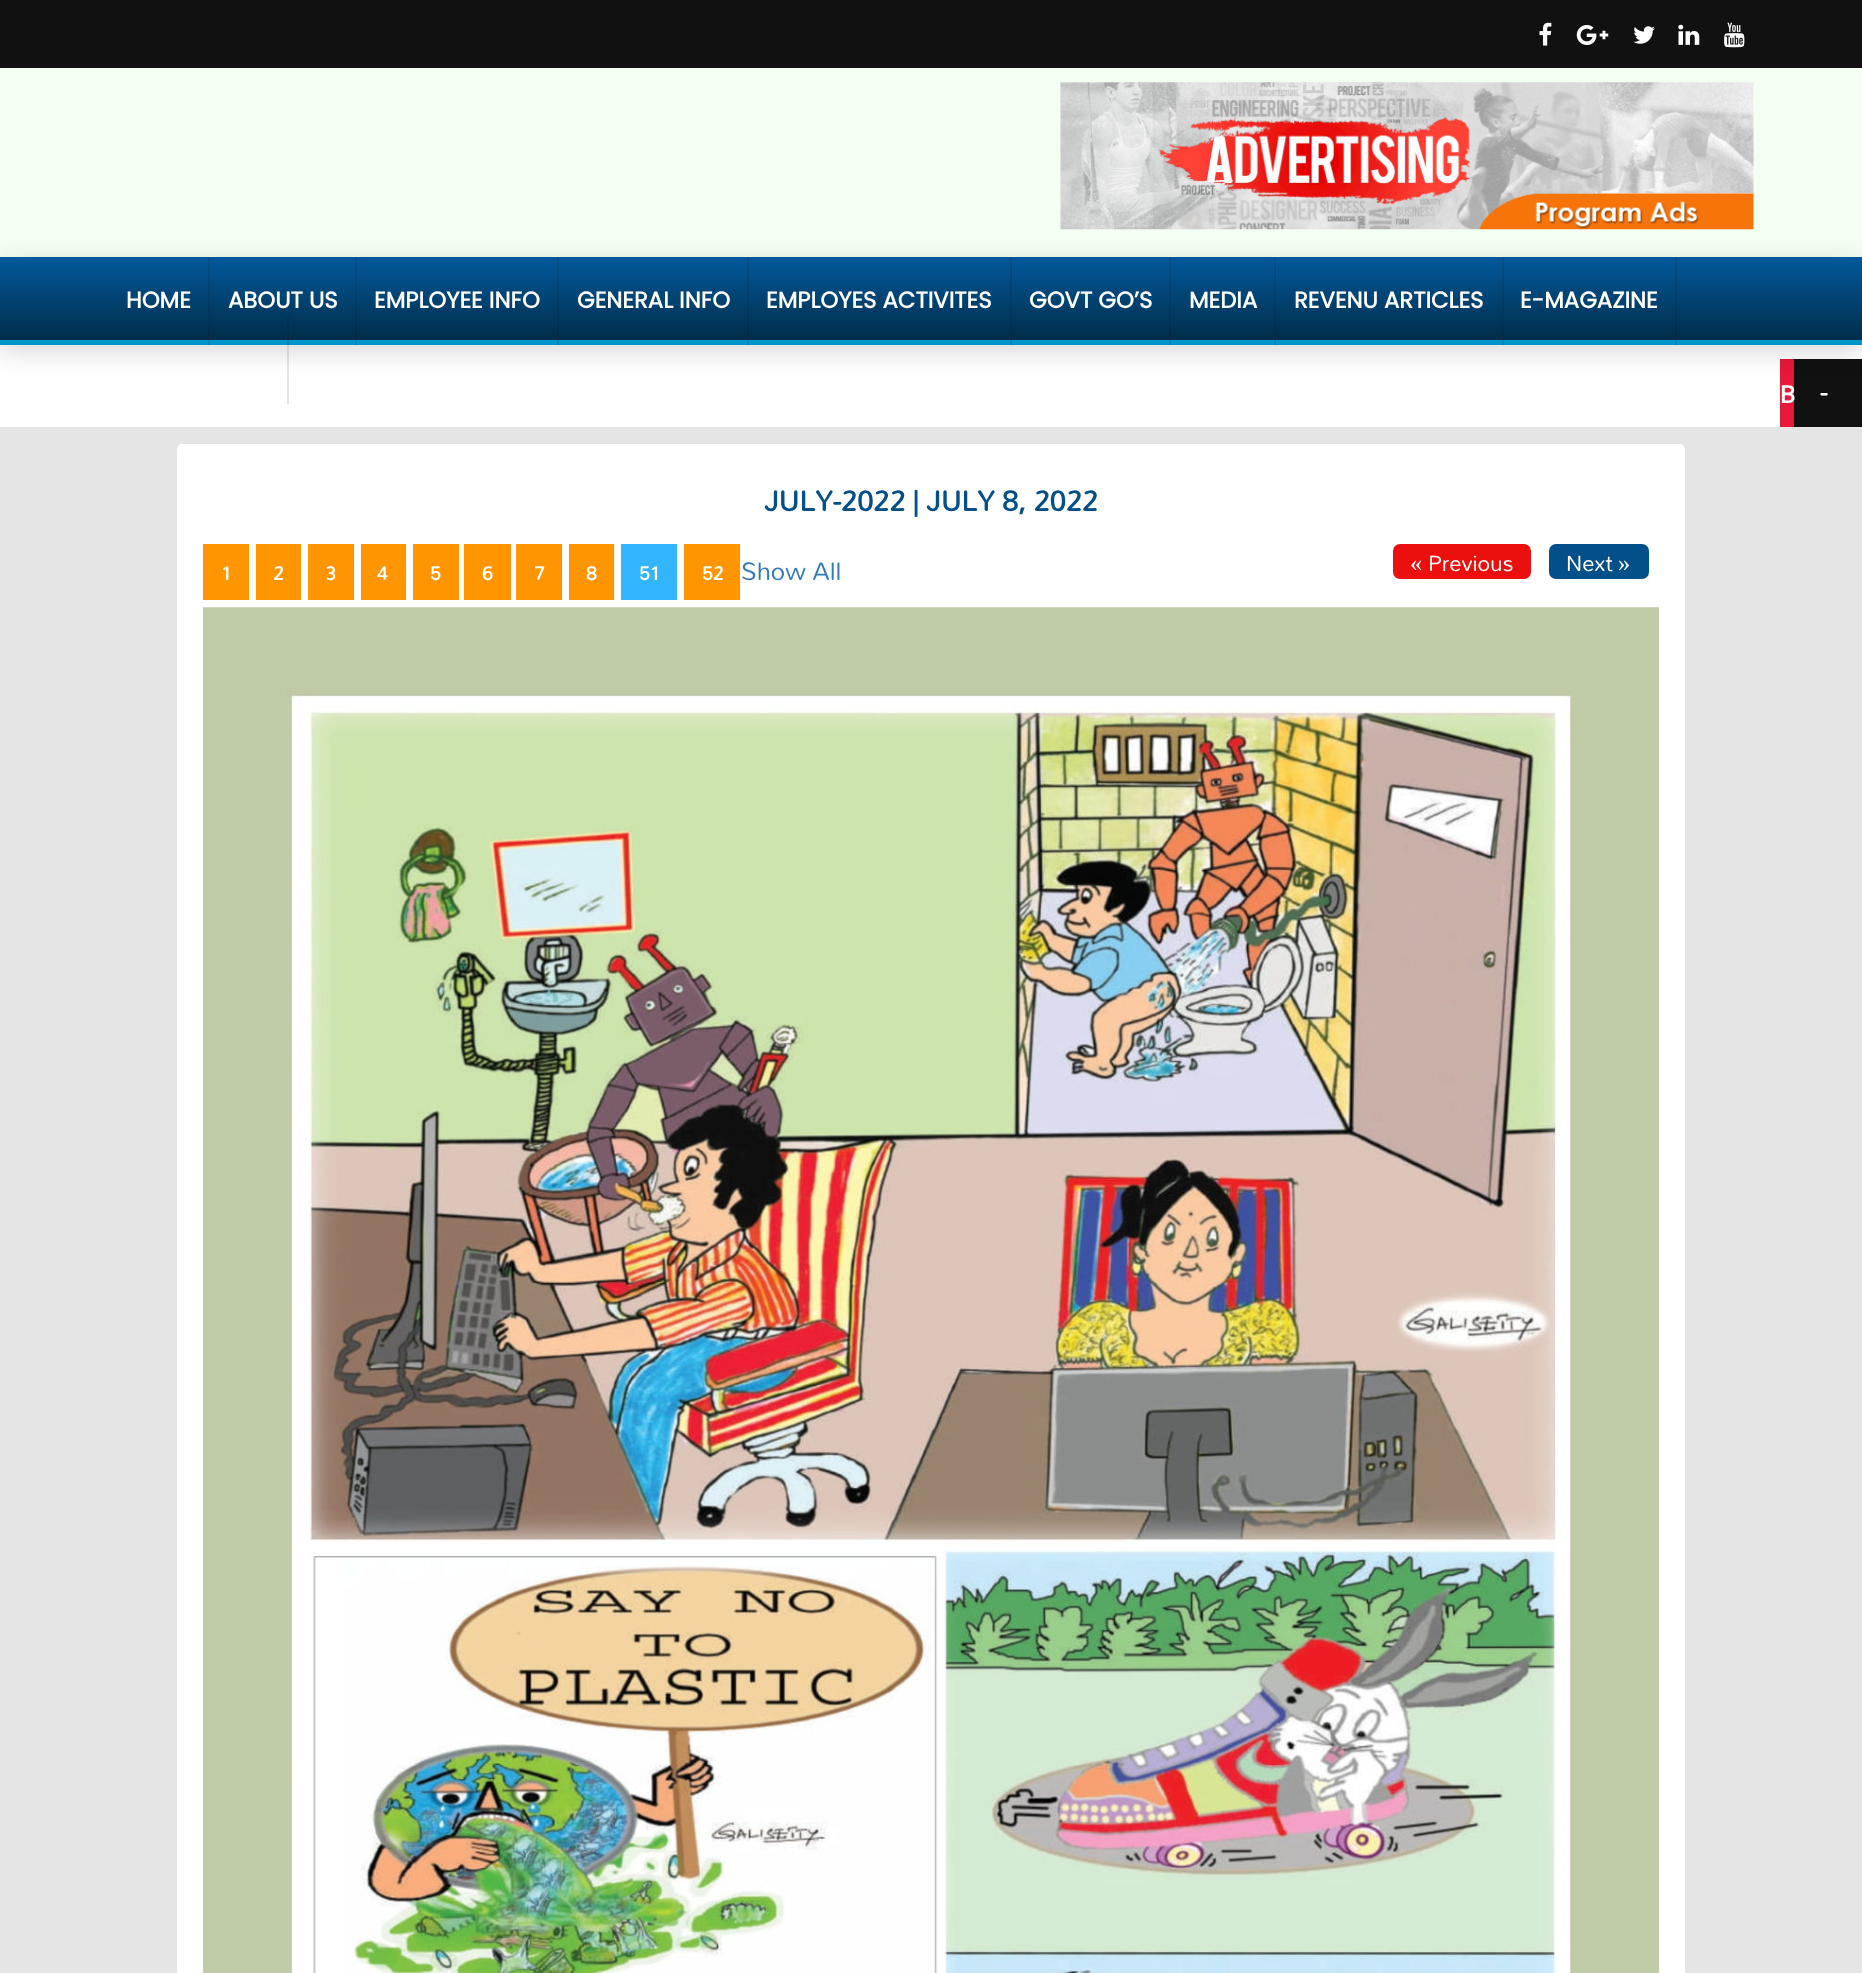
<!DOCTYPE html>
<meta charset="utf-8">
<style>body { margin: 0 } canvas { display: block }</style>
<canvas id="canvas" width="1862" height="1973"></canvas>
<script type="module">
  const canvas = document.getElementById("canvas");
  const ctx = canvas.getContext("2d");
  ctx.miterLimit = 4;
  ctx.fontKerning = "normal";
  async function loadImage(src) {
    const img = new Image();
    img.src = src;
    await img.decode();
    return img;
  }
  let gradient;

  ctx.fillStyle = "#ffffff";
  ctx.fillRect(0, 0, 1862, 1973);
  ctx.fillStyle = "#111111";
  ctx.fillRect(0, 0, 1862, 68);
  ctx.drawImage(await loadImage("img1.png"), 1539, 22, 13, 24);
  ctx.drawImage(await loadImage("img2.png"), 1576, 25, 33, 20);
  ctx.drawImage(await loadImage("img3.png"), 1633, 26, 22, 18);
  ctx.drawImage(await loadImage("img4.png"), 1678, 24, 22, 21);
  ctx.drawImage(await loadImage("img5.png"), 1724, 22, 21, 26);
  ctx.fillStyle = "#f3fff2";
  ctx.fillRect(0, 68, 1862, 189);
  ctx.drawImage(await loadImage("img6.png"), 1060, 82, 694, 148);
  ctx.fillStyle = "#111111";
  ctx.fillRect(1794, 359, 68, 68);
  ctx.fillStyle = "#e71838";
  ctx.fillRect(1780, 359, 14, 68);
  ctx.fillStyle = "rgba(0, 0, 0, 0.15)";
  ctx.filter = "blur(13px)";
  ctx.beginPath();
  ctx.rect(0, 264, 1862, 88);
  ctx.fill();
  ctx.filter = "none";
  gradient = ctx.createLinearGradient(931, 257, 931, 340);
  gradient.addColorStop(0, "#02599c");
  gradient.addColorStop(1, "#012d4a");
  ctx.fillStyle = gradient;
  ctx.fillRect(0, 257, 1862, 83);
  ctx.fillStyle = "#0094cc";
  ctx.fillRect(0, 340, 1862, 5);
  ctx.fillStyle = "rgba(0, 0, 0, 0.1)";
  ctx.fillRect(208, 257, 2, 88);
  ctx.font = "bold 22.75px Poppins";
  ctx.fillStyle = "#ffffff";
  ctx.fillText("HOME", 126, 308);
  ctx.fillStyle = "rgba(0, 0, 0, 0.1)";
  ctx.fillRect(355, 257, 2, 88);
  ctx.fillStyle = "#ffffff";
  ctx.fillText("ABOUT US", 228, 308);
  ctx.fillStyle = "rgba(0, 0, 0, 0.1)";
  ctx.fillRect(557, 257, 2, 88);
  ctx.fillStyle = "#ffffff";
  ctx.fillText("EMPLOYEE INFO", 374, 308);
  ctx.fillStyle = "rgba(0, 0, 0, 0.1)";
  ctx.fillRect(747, 257, 2, 88);
  ctx.fillStyle = "#ffffff";
  ctx.fillText("GENERAL INFO", 577, 308);
  ctx.fillStyle = "rgba(0, 0, 0, 0.1)";
  ctx.fillRect(1010, 257, 2, 88);
  ctx.fillStyle = "#ffffff";
  ctx.fillText("EMPLOYES ACTIVITES", 766, 308);
  ctx.fillStyle = "rgba(0, 0, 0, 0.1)";
  ctx.fillRect(1169, 257, 2, 88);
  ctx.fillStyle = "#ffffff";
  ctx.fillText("GOVT GO’S", 1029, 308);
  ctx.fillStyle = "rgba(0, 0, 0, 0.1)";
  ctx.fillRect(1274, 257, 2, 88);
  ctx.fillStyle = "#ffffff";
  ctx.fillText("MEDIA", 1189, 308);
  ctx.fillStyle = "rgba(0, 0, 0, 0.1)";
  ctx.fillRect(1502, 257, 2, 88);
  ctx.fillStyle = "#ffffff";
  ctx.fillText("REVENU ARTICLES", 1294, 308);
  ctx.fillStyle = "rgba(0, 0, 0, 0.1)";
  ctx.fillRect(1675, 257, 2, 88);
  ctx.fillStyle = "#ffffff";
  ctx.fillText("E-MAGAZINE", 1520, 308);
  ctx.fillStyle = "rgba(0, 0, 0, 0.1)";
  ctx.fillRect(287, 317, 2, 87);
  ctx.font = "bold 24.5px Poppins";
  ctx.fillStyle = "#ffffff";
  ctx.fillText("B", 1780, 403);
  ctx.font = "bold 28px Mallanna";
  ctx.fillText("-", 1820, 401);
  ctx.fillStyle = "#e5e5e5";
  ctx.fillRect(0, 427, 1862, 1546);
  ctx.fillStyle = "#ffffff";
  ctx.beginPath();
  ctx.moveTo(181, 444);
  ctx.lineTo(1681, 444);
  ctx.bezierCurveTo(1683, 444, 1685, 447, 1685, 451);
  ctx.lineTo(1685, 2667);
  ctx.bezierCurveTo(1685, 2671, 1683, 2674, 1681, 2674);
  ctx.lineTo(181, 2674);
  ctx.bezierCurveTo(179, 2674, 177, 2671, 177, 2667);
  ctx.lineTo(177, 451);
  ctx.bezierCurveTo(177, 447, 179, 444, 181, 444);
  ctx.closePath();
  ctx.fill();
  ctx.font = "bold 31.5px Mallanna";
  ctx.fillStyle = "#024f8a";
  ctx.fillText("JULY-2022 | JULY 8, 2022", 764, 511);
  ctx.fillStyle = "#ff9601";
  ctx.fillRect(203, 544, 46, 56);
  ctx.font = "bold 21px Mallanna";
  ctx.fillStyle = "#ffffff";
  ctx.fillText("1", 221, 580);
  ctx.fillStyle = "#ff9601";
  ctx.fillRect(256, 544, 45, 56);
  ctx.fillStyle = "#ffffff";
  ctx.fillText("2", 273, 580);
  ctx.fillStyle = "#ff9601";
  ctx.fillRect(308, 544, 46, 56);
  ctx.fillStyle = "#ffffff";
  ctx.fillText("3", 325, 580);
  ctx.fillStyle = "#ff9601";
  ctx.fillRect(361, 544, 45, 56);
  ctx.fillStyle = "#ffffff";
  ctx.fillText("4", 377, 580);
  ctx.fillStyle = "#ff9601";
  ctx.fillRect(413, 544, 46, 56);
  ctx.fillStyle = "#ffffff";
  ctx.fillText("5", 430, 580);
  ctx.fillStyle = "#ff9601";
  ctx.fillRect(464, 544, 47, 56);
  ctx.fillStyle = "#ffffff";
  ctx.fillText("6", 482, 580);
  ctx.fillStyle = "#ff9601";
  ctx.fillRect(516, 544, 46, 56);
  ctx.fillStyle = "#ffffff";
  ctx.fillText("7", 534, 580);
  ctx.fillStyle = "#ff9601";
  ctx.fillRect(569, 544, 45, 56);
  ctx.fillStyle = "#ffffff";
  ctx.fillText("8", 586, 580);
  ctx.fillStyle = "#32b5fc";
  ctx.fillRect(621, 544, 56, 56);
  ctx.fillStyle = "#ffffff";
  ctx.fillText("51", 639, 580);
  ctx.fillStyle = "#ff9601";
  ctx.fillRect(684, 544, 56, 56);
  ctx.fillStyle = "#ffffff";
  ctx.fillText("52", 702, 580);
  ctx.font = "28px Mallanna";
  ctx.fillStyle = "#337ab7";
  ctx.fillText("Show All", 741, 580);
  ctx.fillStyle = "#eb100e";
  ctx.beginPath();
  ctx.roundRect(1393, 544, 138, 35, 7);
  ctx.fill();
  ctx.font = "24.5px Liberation Serif";
  ctx.fillStyle = "#ffffff";
  ctx.fillText("«", 1410, 571);
  ctx.font = "24.5px Mallanna";
  ctx.fillText("Previous", 1428, 571);
  ctx.fillStyle = "#024f8a";
  ctx.beginPath();
  ctx.roundRect(1549, 544, 100, 35, 7);
  ctx.fill();
  ctx.fillStyle = "#ffffff";
  ctx.fillText("Next", 1566, 571);
  ctx.font = "24.5px Liberation Serif";
  ctx.fillText("»", 1618, 571);
  ctx.drawImage(await loadImage("img7.png"), 203, 607, 1456, 1366);
</script>
